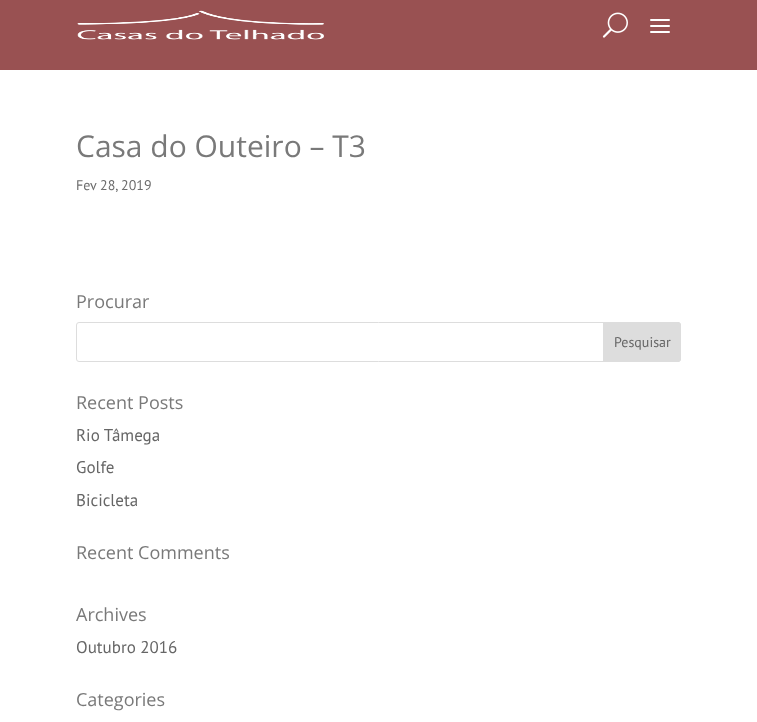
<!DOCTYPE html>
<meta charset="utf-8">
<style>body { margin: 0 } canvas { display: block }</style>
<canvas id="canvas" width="757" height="722"></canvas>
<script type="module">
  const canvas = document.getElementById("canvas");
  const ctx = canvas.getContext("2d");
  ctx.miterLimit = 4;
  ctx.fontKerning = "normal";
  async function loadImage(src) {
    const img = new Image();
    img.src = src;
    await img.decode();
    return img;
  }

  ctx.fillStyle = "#ffffff";
  ctx.fillRect(0, 0, 757, 722);
  ctx.fillStyle = "#995152";
  ctx.fillRect(0, 0, 757, 70);
  ctx.drawImage(await loadImage("img1.png"), 77, 10, 247, 30);
  ctx.drawImage(await loadImage("img2.png"), 602, 12, 26, 26);
  ctx.fillStyle = "#ffffff";
  ctx.beginPath();
  ctx.roundRect(650, 31, 20, 2, 1);
  ctx.fill();
  ctx.beginPath();
  ctx.roundRect(650, 19, 20, 2, 1);
  ctx.fill();
  ctx.beginPath();
  ctx.roundRect(650, 25, 20, 2, 1);
  ctx.fill();
  ctx.font = "30px Open Sans";
  ctx.fillStyle = "#797979";
  ctx.fillText("Casa do Outeiro – T3", 76, 157);
  ctx.font = "14px PT Sans";
  ctx.fillStyle = "#6d6d6d";
  ctx.fillText("Fev 28, 2019", 76, 190);
  ctx.font = "18px Open Sans";
  ctx.fillStyle = "#797979";
  ctx.fillText("Procurar", 76, 308);
  ctx.beginPath();
  ctx.roundRect(76.5, 322.5, 604, 39, 2.5);
  ctx.strokeStyle = "#dddddd";
  ctx.stroke();
  ctx.fillStyle = "#dddddd";
  ctx.beginPath();
  ctx.roundRect(603.5, 322.5, 77, 39, [0, 2.5, 2.5, 0]);
  ctx.fill();
  ctx.stroke();
  ctx.font = "14px PT Sans";
  ctx.fillStyle = "#666666";
  ctx.fillText("Pesquisar", 614, 347);
  ctx.font = "18px Open Sans";
  ctx.fillStyle = "#797979";
  ctx.fillText("Recent Posts", 76, 409);
  ctx.font = "17px PT Sans";
  ctx.fillStyle = "#666666";
  ctx.fillText("Rio Tâmega", 76, 441);
  ctx.fillText("Golfe", 76, 473);
  ctx.fillText("Bicicleta", 76, 506);
  ctx.font = "18px Open Sans";
  ctx.fillStyle = "#797979";
  ctx.fillText("Recent Comments", 76, 559);
  ctx.fillText("Archives", 76, 621);
  ctx.font = "17px PT Sans";
  ctx.fillStyle = "#666666";
  ctx.fillText("Outubro 2016", 76, 653);
  ctx.font = "18px Open Sans";
  ctx.fillStyle = "#797979";
  ctx.fillText("Categories", 76, 706);
</script>
